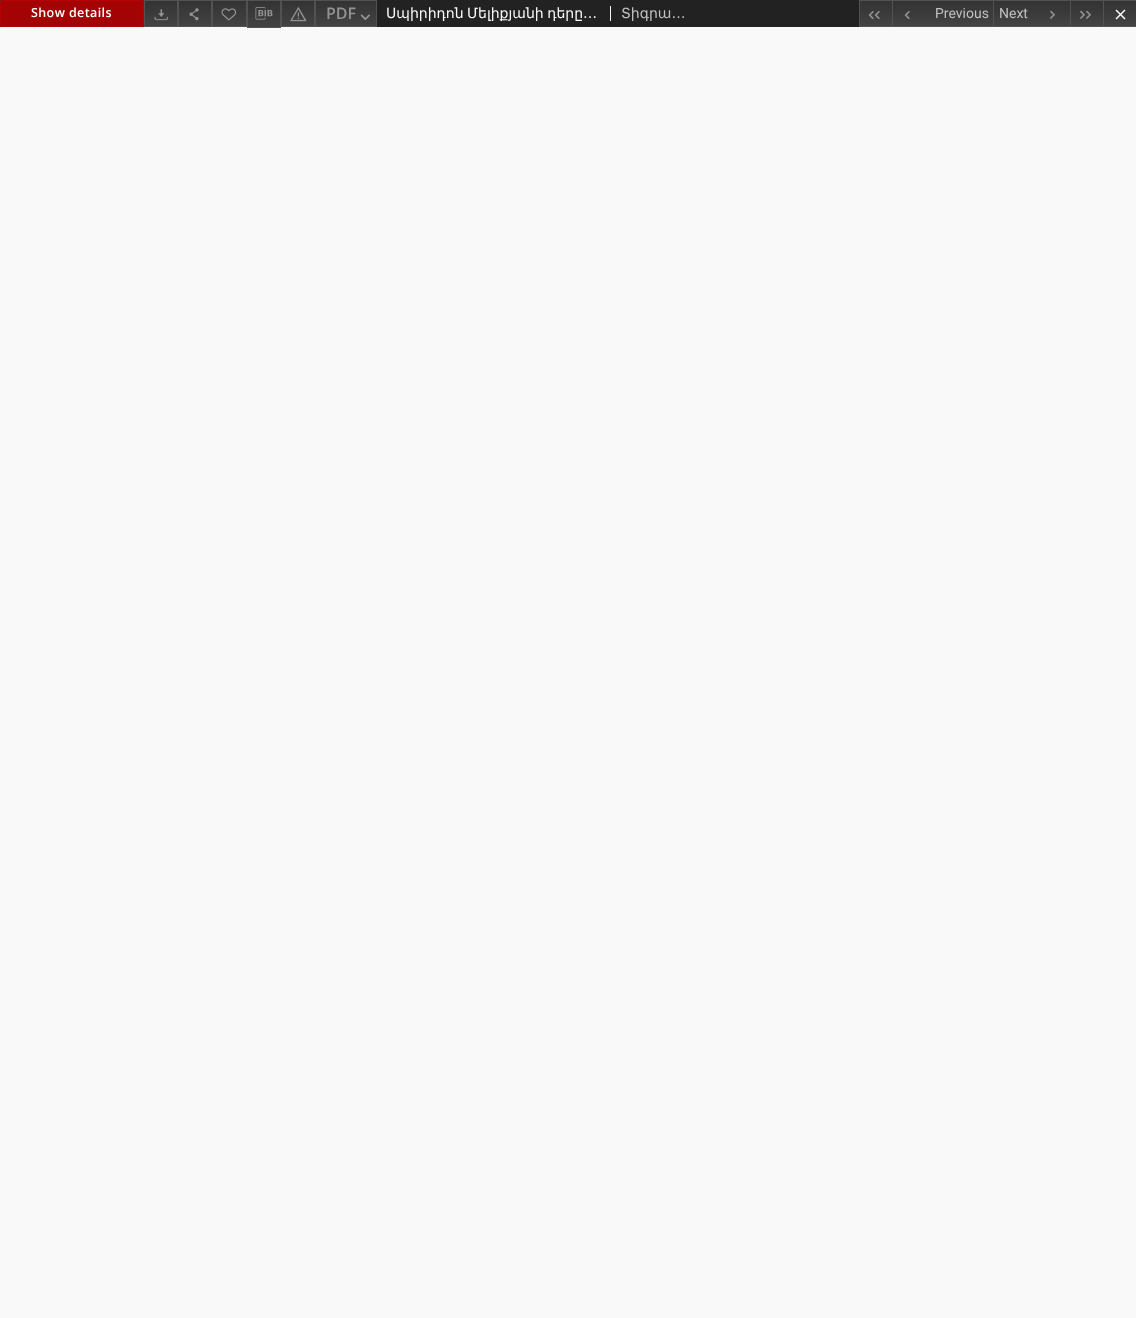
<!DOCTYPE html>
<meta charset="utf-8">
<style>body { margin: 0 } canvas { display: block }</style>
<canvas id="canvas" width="1136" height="1318"></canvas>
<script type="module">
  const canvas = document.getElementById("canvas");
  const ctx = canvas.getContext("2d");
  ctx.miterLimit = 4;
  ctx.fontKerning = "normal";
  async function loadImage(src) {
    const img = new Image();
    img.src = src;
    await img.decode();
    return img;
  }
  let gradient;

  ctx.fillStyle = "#f9f9f9";
  ctx.fillRect(0, 0, 1136, 1318);
  ctx.fillStyle = "#333333";
  ctx.fillRect(0, 0, 144, 27);
  ctx.fillStyle = "#a30304";
  ctx.beginPath();
  ctx.roundRect(0.5, 0.5, 143, 26, 1.5);
  ctx.fill();
  ctx.strokeStyle = "#b70203";
  ctx.stroke();
  ctx.letterSpacing = "0.4px";
  ctx.font = "600 12.5px Open Sans";
  ctx.fillStyle = "#ffffff";
  ctx.fillText("Show details", 31, 17);
  gradient = ctx.createLinearGradient(161, 1, 161, 26);
  gradient.addColorStop(0, "#333333");
  gradient.addColorStop(1, "#434343");
  ctx.fillStyle = gradient;
  ctx.fillRect(145, 1, 32, 25);
  ctx.strokeStyle = "#525252";
  ctx.strokeRect(144.5, 0.5, 33, 26);
  ctx.drawImage(await loadImage("img1.png"), 154, 9, 14, 12);
  gradient = ctx.createLinearGradient(195, 1, 195, 26);
  gradient.addColorStop(0, "#333333");
  gradient.addColorStop(1, "#434343");
  ctx.fillStyle = gradient;
  ctx.fillRect(179, 1, 32, 25);
  ctx.strokeRect(178.5, 0.5, 33, 26);
  ctx.drawImage(await loadImage("img2.png"), 189, 8, 10, 13);
  gradient = ctx.createLinearGradient(230, 1, 230, 26);
  gradient.addColorStop(0, "#333333");
  gradient.addColorStop(1, "#434343");
  ctx.fillStyle = gradient;
  ctx.fillRect(213, 1, 33, 25);
  ctx.strokeRect(212.5, 0.5, 34, 26);
  ctx.drawImage(await loadImage("img3.png"), 221, 8, 16, 13);
  gradient = ctx.createLinearGradient(264, 1, 264, 27);
  gradient.addColorStop(0, "#333333");
  gradient.addColorStop(1, "#434343");
  ctx.fillStyle = gradient;
  ctx.fillRect(248, 1, 32, 26);
  ctx.strokeRect(247.5, 0.5, 33, 27);
  ctx.drawImage(await loadImage("img4.png"), 255, 7, 18, 13);
  gradient = ctx.createLinearGradient(298, 1, 298, 26);
  gradient.addColorStop(0, "#333333");
  gradient.addColorStop(1, "#434343");
  ctx.fillStyle = gradient;
  ctx.fillRect(282, 1, 32, 25);
  ctx.strokeRect(281.5, 0.5, 33, 26);
  ctx.drawImage(await loadImage("img5.png"), 290, 7, 17, 15);
  gradient = ctx.createLinearGradient(346, 1, 346, 26);
  gradient.addColorStop(0, "#333333");
  gradient.addColorStop(1, "#434343");
  ctx.fillStyle = gradient;
  ctx.fillRect(316, 1, 60, 25);
  ctx.strokeRect(315.5, 0.5, 61, 26);
  ctx.letterSpacing = "0px";
  ctx.font = "600 16px Open Sans";
  ctx.fillStyle = "#939393";
  ctx.fillText("PDF", 326, 19);
  ctx.drawImage(await loadImage("img6.png"), 360, 14, 10, 7);
  ctx.fillStyle = "#222222";
  ctx.fillRect(377, 0, 482, 27);
  ctx.fillStyle = "#f5f5f5";
  ctx.fillRect(610, 6, 1, 15);
  ctx.wordSpacing = "-1px";
  ctx.font = "14px DejaVu Sans";
  ctx.fillStyle = "#f9f9f9";
  ctx.fillText("Սպիրիդոն Մելիքյանի դերը…", 386, 18);
  ctx.fillStyle = "#c1c1c1";
  ctx.fillText("Տիգրա…", 621, 18);
  gradient = ctx.createLinearGradient(876, 1, 876, 26);
  gradient.addColorStop(0, "#333333");
  gradient.addColorStop(1, "#434343");
  ctx.fillStyle = gradient;
  ctx.fillRect(860, 1, 32, 25);
  ctx.fillStyle = "#525252";
  ctx.fillRect(859, 0, 277, 1);
  ctx.fillRect(859, 26, 277, 1);
  ctx.fillRect(859, 0, 1, 27);
  ctx.drawImage(await loadImage("img7.png"), 868, 11, 6, 8);
  ctx.drawImage(await loadImage("img7.png"), 874, 11, 6, 8);
  gradient = ctx.createLinearGradient(943, 1, 943, 26);
  gradient.addColorStop(0, "#333333");
  gradient.addColorStop(1, "#434343");
  ctx.fillStyle = gradient;
  ctx.fillRect(893, 1, 100, 25);
  ctx.fillStyle = "#525252";
  ctx.fillRect(892, 0, 1, 27);
  ctx.drawImage(await loadImage("img7.png"), 904, 11, 6, 8);
  ctx.wordSpacing = "0px";
  ctx.font = "14px Roboto";
  ctx.fillStyle = "#c1c1c1";
  ctx.fillText("Previous", 935, 18);
  gradient = ctx.createLinearGradient(1032, 1, 1032, 26);
  gradient.addColorStop(0, "#333333");
  gradient.addColorStop(1, "#434343");
  ctx.fillStyle = gradient;
  ctx.fillRect(994, 1, 76, 25);
  ctx.fillStyle = "#525252";
  ctx.fillRect(993, 0, 1, 27);
  ctx.fillStyle = "#c1c1c1";
  ctx.fillText("Next", 999, 18);
  ctx.drawImage(await loadImage("img8.png"), 1050, 10, 5, 9);
  gradient = ctx.createLinearGradient(1087, 1, 1087, 26);
  gradient.addColorStop(0, "#333333");
  gradient.addColorStop(1, "#434343");
  ctx.fillStyle = gradient;
  ctx.fillRect(1071, 1, 32, 25);
  ctx.fillStyle = "#525252";
  ctx.fillRect(1070, 0, 1, 27);
  ctx.drawImage(await loadImage("img8.png"), 1080, 10, 5, 9);
  ctx.drawImage(await loadImage("img8.png"), 1086, 10, 5, 9);
  gradient = ctx.createLinearGradient(1120, 1, 1120, 26);
  gradient.addColorStop(0, "#333333");
  gradient.addColorStop(1, "#434343");
  ctx.fillStyle = gradient;
  ctx.fillRect(1104, 1, 32, 25);
  ctx.fillStyle = "#525252";
  ctx.fillRect(1103, 0, 1, 27);
  ctx.fillStyle = "#ffffff";
  ctx.beginPath();
  ctx.moveTo(1115.5, 18.5);
  ctx.lineTo(1124.5, 9.5);
  ctx.lineTo(1125.5, 10.5);
  ctx.lineTo(1116.5, 19.5);
  ctx.closePath();
  ctx.fill();
  ctx.beginPath();
  ctx.moveTo(1116.5, 9.5);
  ctx.lineTo(1125.5, 18.5);
  ctx.lineTo(1124.5, 19.5);
  ctx.lineTo(1115.5, 10.5);
  ctx.closePath();
  ctx.fill();
</script>
